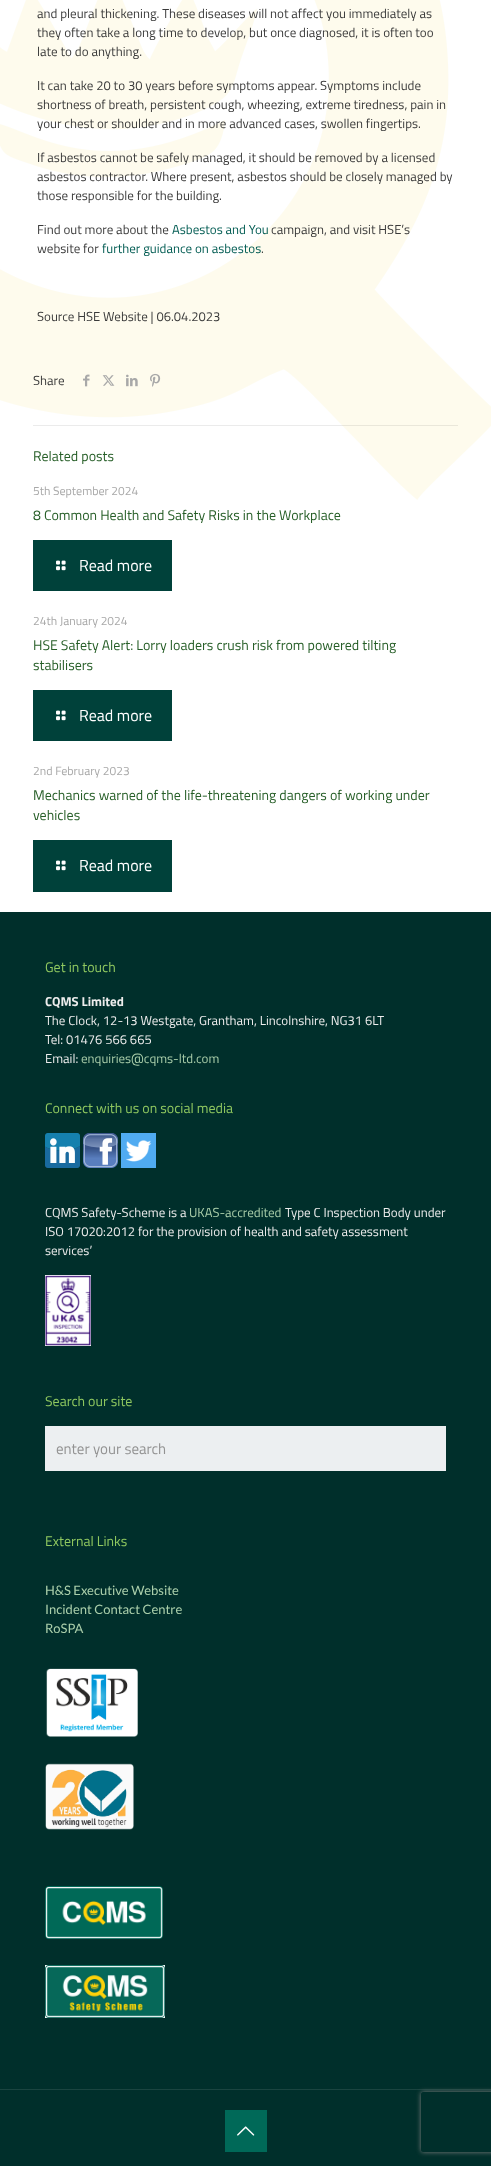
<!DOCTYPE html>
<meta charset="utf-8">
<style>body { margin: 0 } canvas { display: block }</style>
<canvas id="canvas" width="491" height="2166"></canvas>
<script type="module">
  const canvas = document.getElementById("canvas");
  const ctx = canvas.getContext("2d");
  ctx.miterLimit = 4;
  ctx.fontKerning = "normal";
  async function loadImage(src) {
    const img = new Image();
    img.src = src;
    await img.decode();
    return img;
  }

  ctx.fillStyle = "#ffffff";
  ctx.fillRect(0, 0, 491, 2166);
  ctx.drawImage(await loadImage("img1.png"), 0, 0, 491, 500);
  ctx.font = "13px Titillium Web";
  ctx.fillStyle = "#3a3a3a";
  ctx.fillText("and pleural thickening. These diseases will not affect you immediately as", 37, 18);
  ctx.fillText("they often take a long time to develop, but once diagnosed, it is often too", 37, 37);
  ctx.fillText("late to do anything.", 37, 56);
  ctx.fillText("It can take 20 to 30 years before symptoms appear. Symptoms include", 37, 90);
  ctx.fillText("shortness of breath, persistent cough, wheezing, extreme tiredness, pain in", 37, 109);
  ctx.fillText("your chest or shoulder and in more advanced cases, swollen fingertips.", 37, 128);
  ctx.fillText("If asbestos cannot be safely managed, it should be removed by a licensed", 37, 162);
  ctx.fillText("asbestos contractor. Where present, asbestos should be closely managed by", 37, 181);
  ctx.fillText("those responsible for the building.", 37, 200);
  ctx.fillText("Find out more about the", 37, 234);
  ctx.fillStyle = "#005b52";
  ctx.fillText("Asbestos and You", 172, 234);
  ctx.fillStyle = "#3a3a3a";
  ctx.fillText("campaign, and visit HSE’s", 271, 234);
  ctx.fillText("website for", 37, 253);
  ctx.fillStyle = "#005b52";
  ctx.fillText("further guidance on asbestos", 102, 253);
  ctx.fillStyle = "#3a3a3a";
  ctx.fillText(".", 261, 253);
  ctx.fillText("Source HSE Website | 06.04.2023", 37, 321);
  ctx.fillText("Share", 33, 385);
  ctx.drawImage(await loadImage("img2.png"), 83, 374, 7, 13);
  ctx.drawImage(await loadImage("img3.png"), 102, 375, 13, 11);
  ctx.drawImage(await loadImage("img4.png"), 126, 374, 12, 13);
  ctx.drawImage(await loadImage("img5.png"), 150, 373, 11, 14);
  ctx.fillStyle = "rgba(0, 0, 0, 0.08)";
  ctx.fillRect(33, 425, 425, 1);
  ctx.font = "14px Titillium Web";
  ctx.fillStyle = "#265e27";
  ctx.fillText("Related posts", 33, 461);
  ctx.font = "12px Titillium Web";
  ctx.fillStyle = "#a8a8a8";
  ctx.fillText("5th September 2024", 33, 495);
  ctx.font = "14px Titillium Web";
  ctx.fillStyle = "#265e27";
  ctx.fillText("8 Common Health and Safety Risks in the Workplace", 33, 520);
  ctx.fillStyle = "#00413a";
  ctx.fillRect(33, 540, 139, 51);
  ctx.drawImage(await loadImage("img6.png"), 56, 560, 10, 11);
  ctx.font = "16px Titillium Web";
  ctx.fillStyle = "#ffffff";
  ctx.fillText("Read more", 79, 571);
  ctx.font = "12px Titillium Web";
  ctx.fillStyle = "#a8a8a8";
  ctx.fillText("24th January 2024", 33, 625);
  ctx.font = "14px Titillium Web";
  ctx.fillStyle = "#265e27";
  ctx.fillText("HSE Safety Alert: Lorry loaders crush risk from powered tilting", 33, 650);
  ctx.fillText("stabilisers", 33, 670);
  ctx.fillStyle = "#00413a";
  ctx.fillRect(33, 690, 139, 51);
  ctx.drawImage(await loadImage("img6.png"), 56, 710, 10, 11);
  ctx.font = "16px Titillium Web";
  ctx.fillStyle = "#ffffff";
  ctx.fillText("Read more", 79, 721);
  ctx.font = "12px Titillium Web";
  ctx.fillStyle = "#a8a8a8";
  ctx.fillText("2nd February 2023", 33, 775);
  ctx.font = "14px Titillium Web";
  ctx.fillStyle = "#265e27";
  ctx.fillText("Mechanics warned of the life-threatening dangers of working under", 33, 800);
  ctx.fillText("vehicles", 33, 820);
  ctx.fillStyle = "#00413a";
  ctx.fillRect(33, 840, 139, 52);
  ctx.drawImage(await loadImage("img6.png"), 56, 860, 10, 11);
  ctx.font = "16px Titillium Web";
  ctx.fillStyle = "#ffffff";
  ctx.fillText("Read more", 79, 871);
  ctx.fillStyle = "#002f2b";
  ctx.fillRect(0, 912, 491, 1254);
  ctx.font = "14px Titillium Web";
  ctx.fillStyle = "#90c960";
  ctx.fillText("Get in touch", 45, 972);
  ctx.font = "bold 13px Titillium Web";
  ctx.fillStyle = "#ededed";
  ctx.fillText("CQMS Limited", 45, 1006);
  ctx.font = "13px Titillium Web";
  ctx.fillText("The Clock, 12-13 Westgate, Grantham, Lincolnshire, NG31 6LT", 45, 1025);
  ctx.fillText("Tel: 01476 566 665", 45, 1044);
  ctx.fillText("Email:", 45, 1063);
  ctx.fillStyle = "#aacfab";
  ctx.fillText("enquiries@cqms-ltd.com", 81, 1063);
  ctx.font = "14px Titillium Web";
  ctx.fillStyle = "#90c960";
  ctx.fillText("Connect with us on social media", 45, 1113);
  ctx.drawImage(await loadImage("img7.png"), 45, 1133, 35, 35);
  ctx.drawImage(await loadImage("img8.png"), 83, 1133, 35, 35);
  ctx.drawImage(await loadImage("img9.png"), 121, 1133, 35, 35);
  ctx.font = "13px Titillium Web";
  ctx.fillStyle = "#ededed";
  ctx.fillText("CQMS Safety-Scheme is a", 45, 1217);
  ctx.fillStyle = "#aacfab";
  ctx.fillText("UKAS-accredited", 189, 1217);
  ctx.fillStyle = "#ededed";
  ctx.fillText("Type C Inspection Body under", 285, 1217);
  ctx.fillText("ISO 17020:2012 for the provision of health and safety assessment", 45, 1236);
  ctx.fillText("services’", 45, 1255);
  ctx.drawImage(await loadImage("img10.png"), 45, 1275, 46, 71);
  ctx.font = "14px Titillium Web";
  ctx.fillStyle = "#90c960";
  ctx.fillText("Search our site", 45, 1406);
  ctx.fillStyle = "#eceff1";
  ctx.fillRect(45, 1426, 401, 45);
  ctx.font = "15px Titillium Web";
  ctx.fillStyle = "#929292";
  ctx.fillText("enter your search", 56, 1454);
  ctx.font = "14px Titillium Web";
  ctx.fillStyle = "#90c960";
  ctx.fillText("External Links", 45, 1546);
  ctx.font = "13px Lato";
  ctx.fillStyle = "#aacfab";
  ctx.fillText("H&S Executive Website", 45, 1595);
  ctx.fillText("Incident Contact Centre", 45, 1614);
  ctx.fillText("RoSPA", 45, 1633);
  ctx.drawImage(await loadImage("img11.png"), 46, 1668, 92, 69);
  ctx.drawImage(await loadImage("img12.png"), 45, 1763, 89, 67);
  ctx.drawImage(await loadImage("img13.png"), 45, 1886, 118, 53);
  ctx.drawImage(await loadImage("img14.png"), 45, 1965, 120, 53);
  ctx.fillStyle = "#1a4440";
  ctx.fillRect(0, 2089, 491, 1);
  ctx.fillStyle = "#006958";
  ctx.fillRect(225, 2110, 42, 42);
  ctx.drawImage(await loadImage("img15.png"), 237, 2126, 18, 10);
  ctx.save();
  ctx.beginPath();
  ctx.moveTo(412, 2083);
  ctx.lineTo(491, 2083);
  ctx.lineTo(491, 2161);
  ctx.lineTo(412, 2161);
  ctx.closePath();
  ctx.moveTo(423, 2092);
  ctx.lineTo(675, 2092);
  ctx.bezierCurveTo(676, 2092, 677, 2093, 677, 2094);
  ctx.lineTo(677, 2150);
  ctx.bezierCurveTo(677, 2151, 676, 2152, 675, 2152);
  ctx.lineTo(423, 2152);
  ctx.bezierCurveTo(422, 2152, 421, 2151, 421, 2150);
  ctx.lineTo(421, 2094);
  ctx.bezierCurveTo(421, 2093, 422, 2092, 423, 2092);
  ctx.closePath();
  ctx.clip("evenodd");
  ctx.fillStyle = "#808080";
  ctx.filter = "blur(2.5px)";
  ctx.beginPath();
  ctx.roundRect(421, 2092, 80, 60, 2);
  ctx.fill();
  ctx.filter = "none";
  ctx.restore();
</script>
